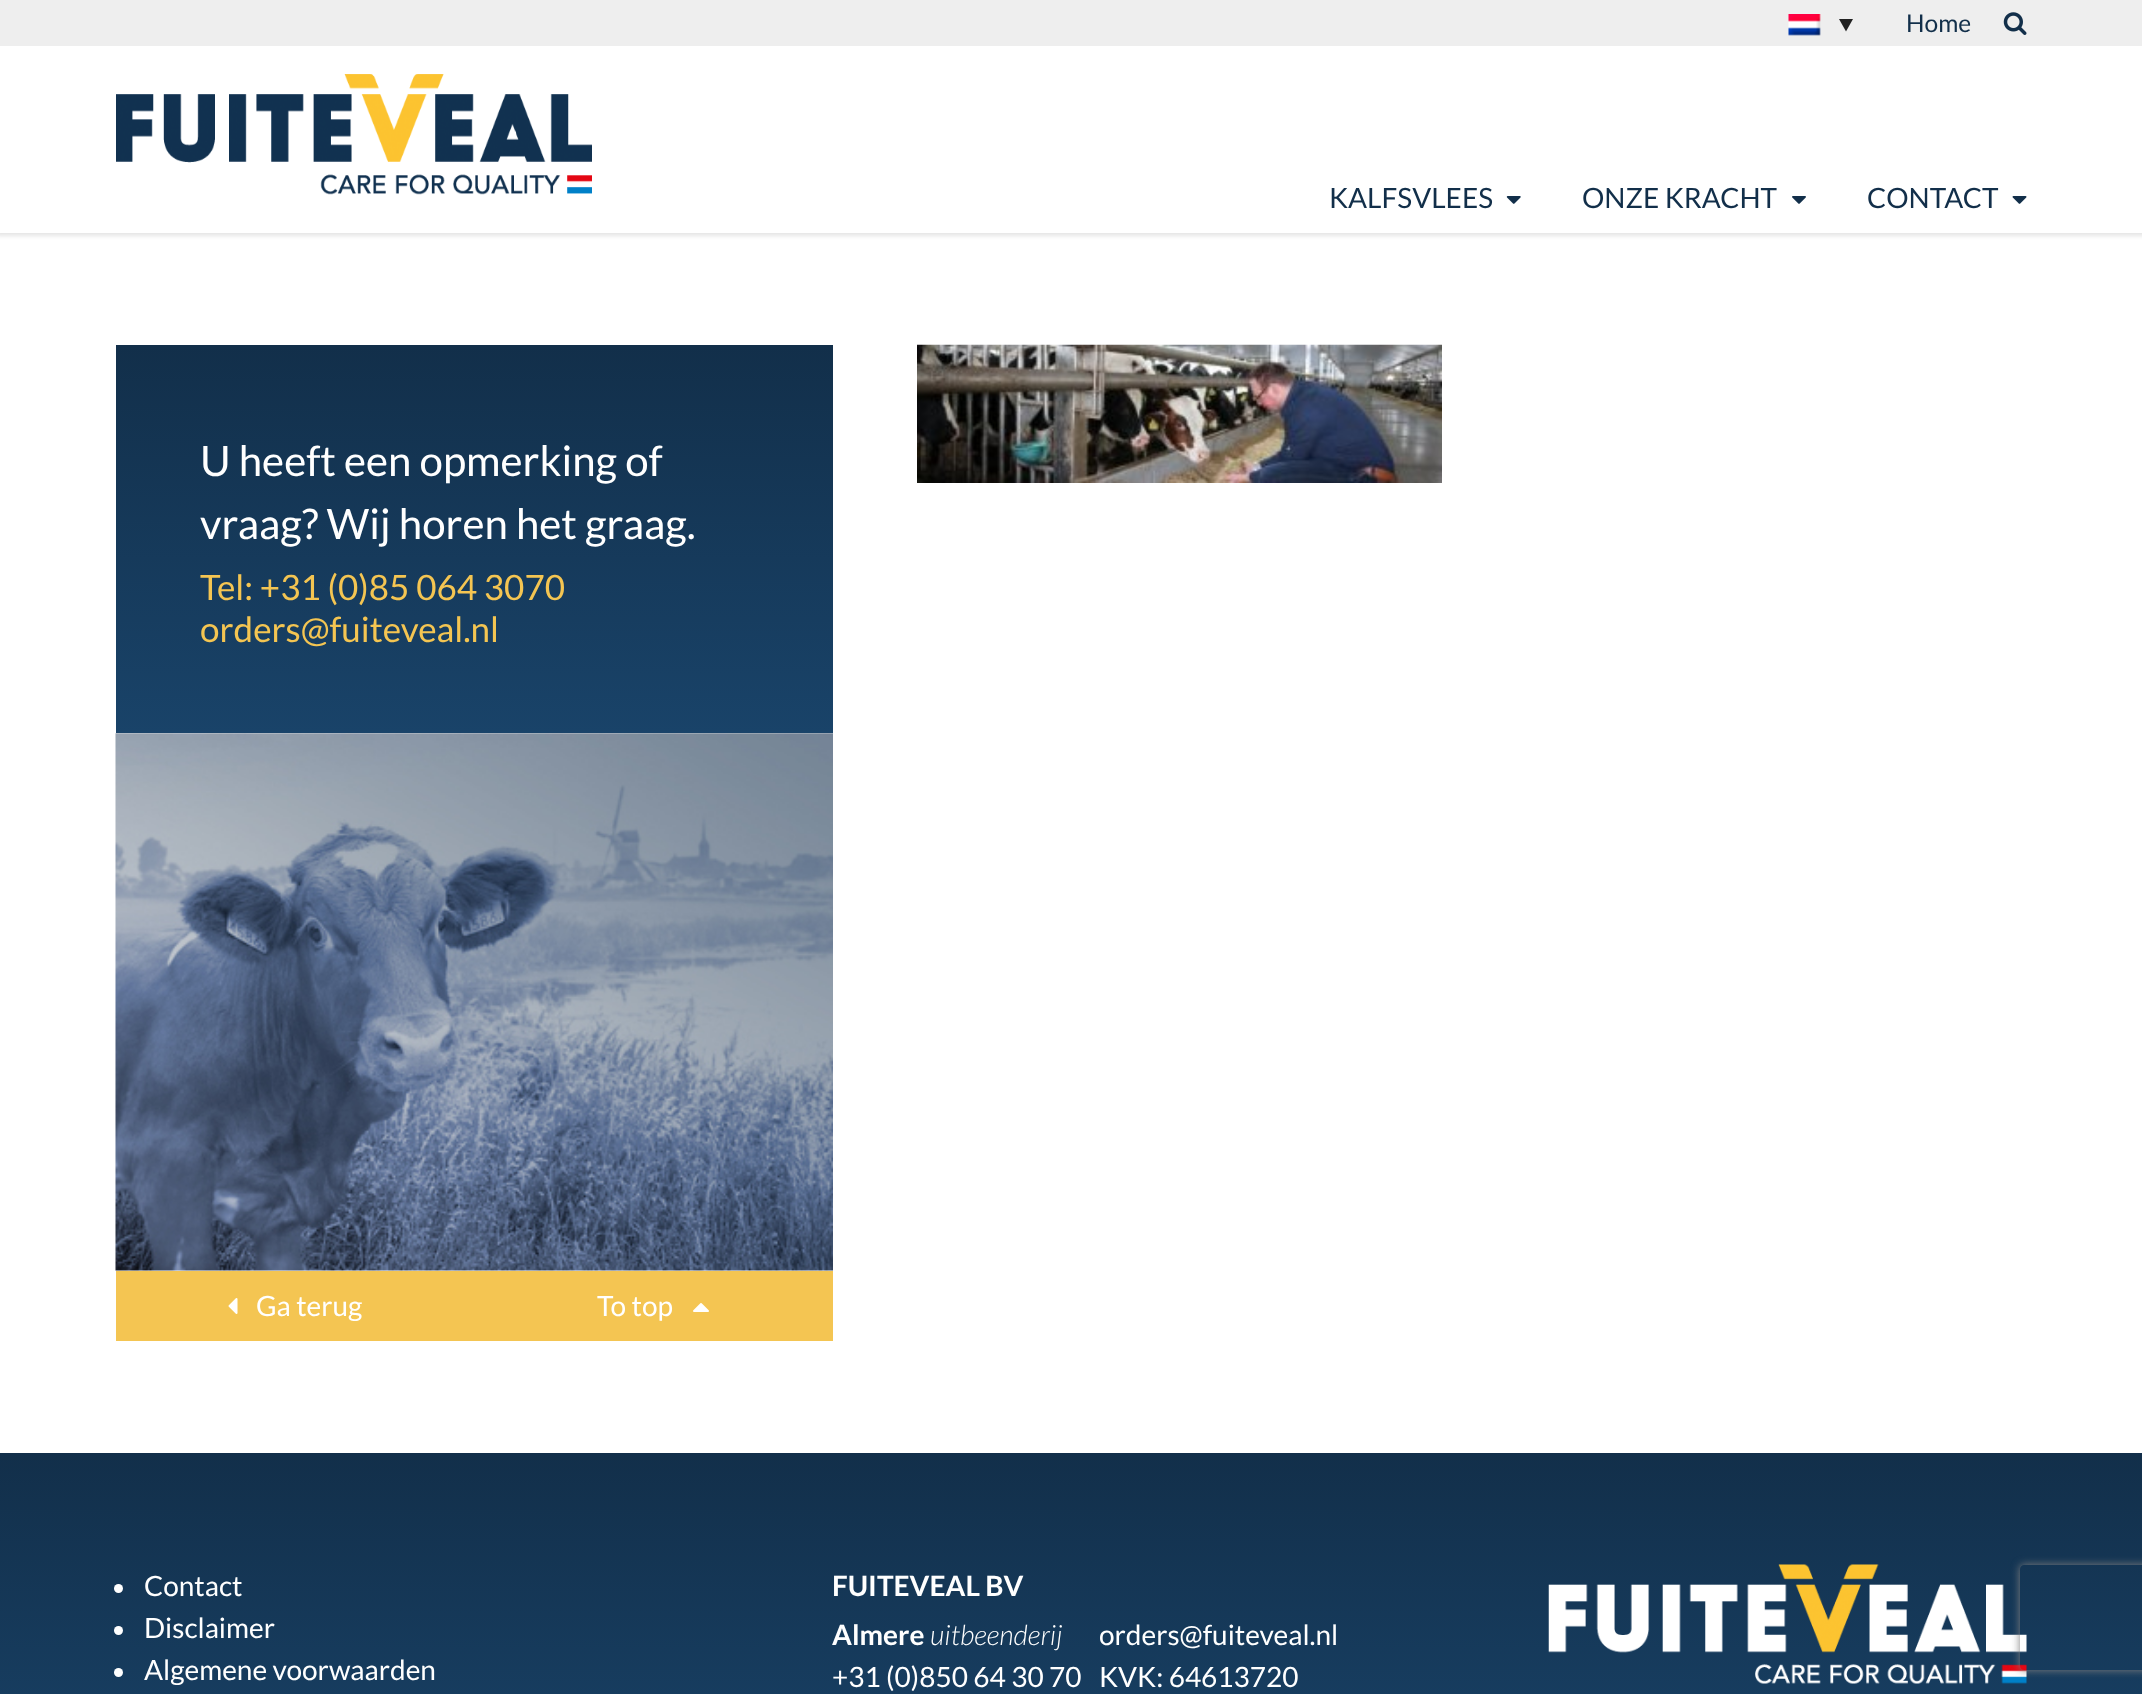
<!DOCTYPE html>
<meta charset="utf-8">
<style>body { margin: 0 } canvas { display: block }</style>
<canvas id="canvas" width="2142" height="1694"></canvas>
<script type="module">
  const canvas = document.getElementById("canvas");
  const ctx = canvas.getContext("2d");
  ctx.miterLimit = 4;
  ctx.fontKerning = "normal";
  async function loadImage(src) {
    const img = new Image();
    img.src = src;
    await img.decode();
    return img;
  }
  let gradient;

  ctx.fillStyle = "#ffffff";
  ctx.fillRect(0, 0, 2142, 1694);
  ctx.fillStyle = "rgba(0, 0, 0, 0.1)";
  ctx.filter = "blur(2px)";
  ctx.beginPath();
  ctx.rect(-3, -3, 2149, 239);
  ctx.fill();
  ctx.filter = "none";
  ctx.fillStyle = "#ffffff";
  ctx.fillRect(0, 46, 2142, 187);
  ctx.fillStyle = "#eeeeee";
  ctx.fillRect(0, 0, 2142, 46);
  ctx.drawImage(await loadImage("img1.png"), 1788, 14, 33, 22);
  ctx.fillStyle = "#222222";
  ctx.beginPath();
  ctx.moveTo(1839, 19);
  ctx.lineTo(1853, 19);
  ctx.lineTo(1846, 31.5);
  ctx.closePath();
  ctx.fill();
  ctx.font = "24.5px Lato";
  ctx.fillStyle = "#122f4a";
  ctx.fillText("Home", 1906, 32);
  ctx.drawImage(await loadImage("img2.png"), 2003, 12, 24, 23);
  ctx.drawImage(await loadImage("img3.png"), 116, 74, 476, 121);
  ctx.font = "28px Lato";
  ctx.fillText("KALFSVLEES", 1329, 208);
  ctx.drawImage(await loadImage("img4.png"), 1506, 196, 15, 8);
  ctx.fillText("ONZE KRACHT", 1582, 208);
  ctx.drawImage(await loadImage("img5.png"), 1792, 196, 14, 8);
  ctx.fillText("CONTACT", 1867, 208);
  ctx.drawImage(await loadImage("img6.png"), 2012, 196, 15, 8);
  ctx.drawImage(await loadImage("img7.png"), 917, 344, 525, 139);
  gradient = ctx.createLinearGradient(474, 345, 474, 733);
  gradient.addColorStop(0, "#122f4a");
  gradient.addColorStop(1, "#194369");
  ctx.fillStyle = gradient;
  ctx.fillRect(116, 345, 717, 388);
  ctx.font = "42px Lato";
  ctx.fillStyle = "#ffffff";
  ctx.fillText("U heeft een opmerking of", 200, 476);
  ctx.fillText("vraag? Wij horen het graag.", 200, 539);
  ctx.font = "35px Lato";
  ctx.fillStyle = "#f4c552";
  ctx.fillText("Tel: +31 (0)85 064 3070", 200, 600);
  ctx.fillText("orders@fuiteveal.nl", 200, 642);
  ctx.drawImage(await loadImage("img8.png"), 115, 733, 718, 538);
  ctx.fillRect(116, 1271, 717, 70);
  ctx.drawImage(await loadImage("img9.png"), 228, 1298, 10, 16);
  ctx.font = "28px Lato";
  ctx.fillStyle = "#ffffff";
  ctx.fillText("Ga terug", 256, 1316);
  ctx.fillText("To top", 597, 1316);
  ctx.drawImage(await loadImage("img10.png"), 693, 1303, 16, 9);
  gradient = ctx.createLinearGradient(1071, 1452, 1071, 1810);
  gradient.addColorStop(0, "#122f4a");
  gradient.addColorStop(1, "#194369");
  ctx.fillStyle = gradient;
  ctx.fillRect(0, 1453, 2142, 241);
  ctx.fillStyle = "#ffffff";
  ctx.beginPath();
  ctx.arc(118.5, 1588.5, 4.5, 0, Math.PI * 2);
  ctx.fill();
  ctx.fillText("Contact", 144, 1596);
  ctx.beginPath();
  ctx.arc(118.5, 1630.5, 4.5, 0, Math.PI * 2);
  ctx.fill();
  ctx.fillText("Disclaimer", 144, 1638);
  ctx.beginPath();
  ctx.arc(118.5, 1672.5, 4.5, 0, Math.PI * 2);
  ctx.fill();
  ctx.fillText("Algemene voorwaarden", 144, 1680);
  ctx.font = "bold 28px Lato";
  ctx.fillText("FUITEVEAL BV", 832, 1596);
  ctx.fillText("Almere", 832, 1645);
  ctx.font = "italic 300 28px Lato";
  ctx.fillText("uitbeenderij", 930, 1645);
  ctx.font = "28px Lato";
  ctx.fillText("+31 (0)850 64 30 70", 832, 1687);
  ctx.fillText("orders@fuiteveal.nl", 1099, 1645);
  ctx.fillText("KVK: 64613720", 1099, 1687);
  ctx.drawImage(await loadImage("img11.png"), 1548, 1564, 479, 120);
  ctx.save();
  ctx.beginPath();
  ctx.moveTo(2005, 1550);
  ctx.lineTo(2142, 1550);
  ctx.lineTo(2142, 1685);
  ctx.lineTo(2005, 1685);
  ctx.closePath();
  ctx.moveTo(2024, 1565);
  ctx.lineTo(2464, 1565);
  ctx.bezierCurveTo(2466, 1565, 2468, 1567, 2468, 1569);
  ctx.lineTo(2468, 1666);
  ctx.bezierCurveTo(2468, 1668, 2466, 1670, 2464, 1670);
  ctx.lineTo(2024, 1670);
  ctx.bezierCurveTo(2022, 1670, 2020, 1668, 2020, 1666);
  ctx.lineTo(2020, 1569);
  ctx.bezierCurveTo(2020, 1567, 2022, 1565, 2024, 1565);
  ctx.closePath();
  ctx.clip("evenodd");
  ctx.fillStyle = "#808080";
  ctx.filter = "blur(4.5px)";
  ctx.beginPath();
  ctx.roundRect(2020, 1565, 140, 105, 4);
  ctx.fill();
  ctx.filter = "none";
  ctx.restore();
</script>
